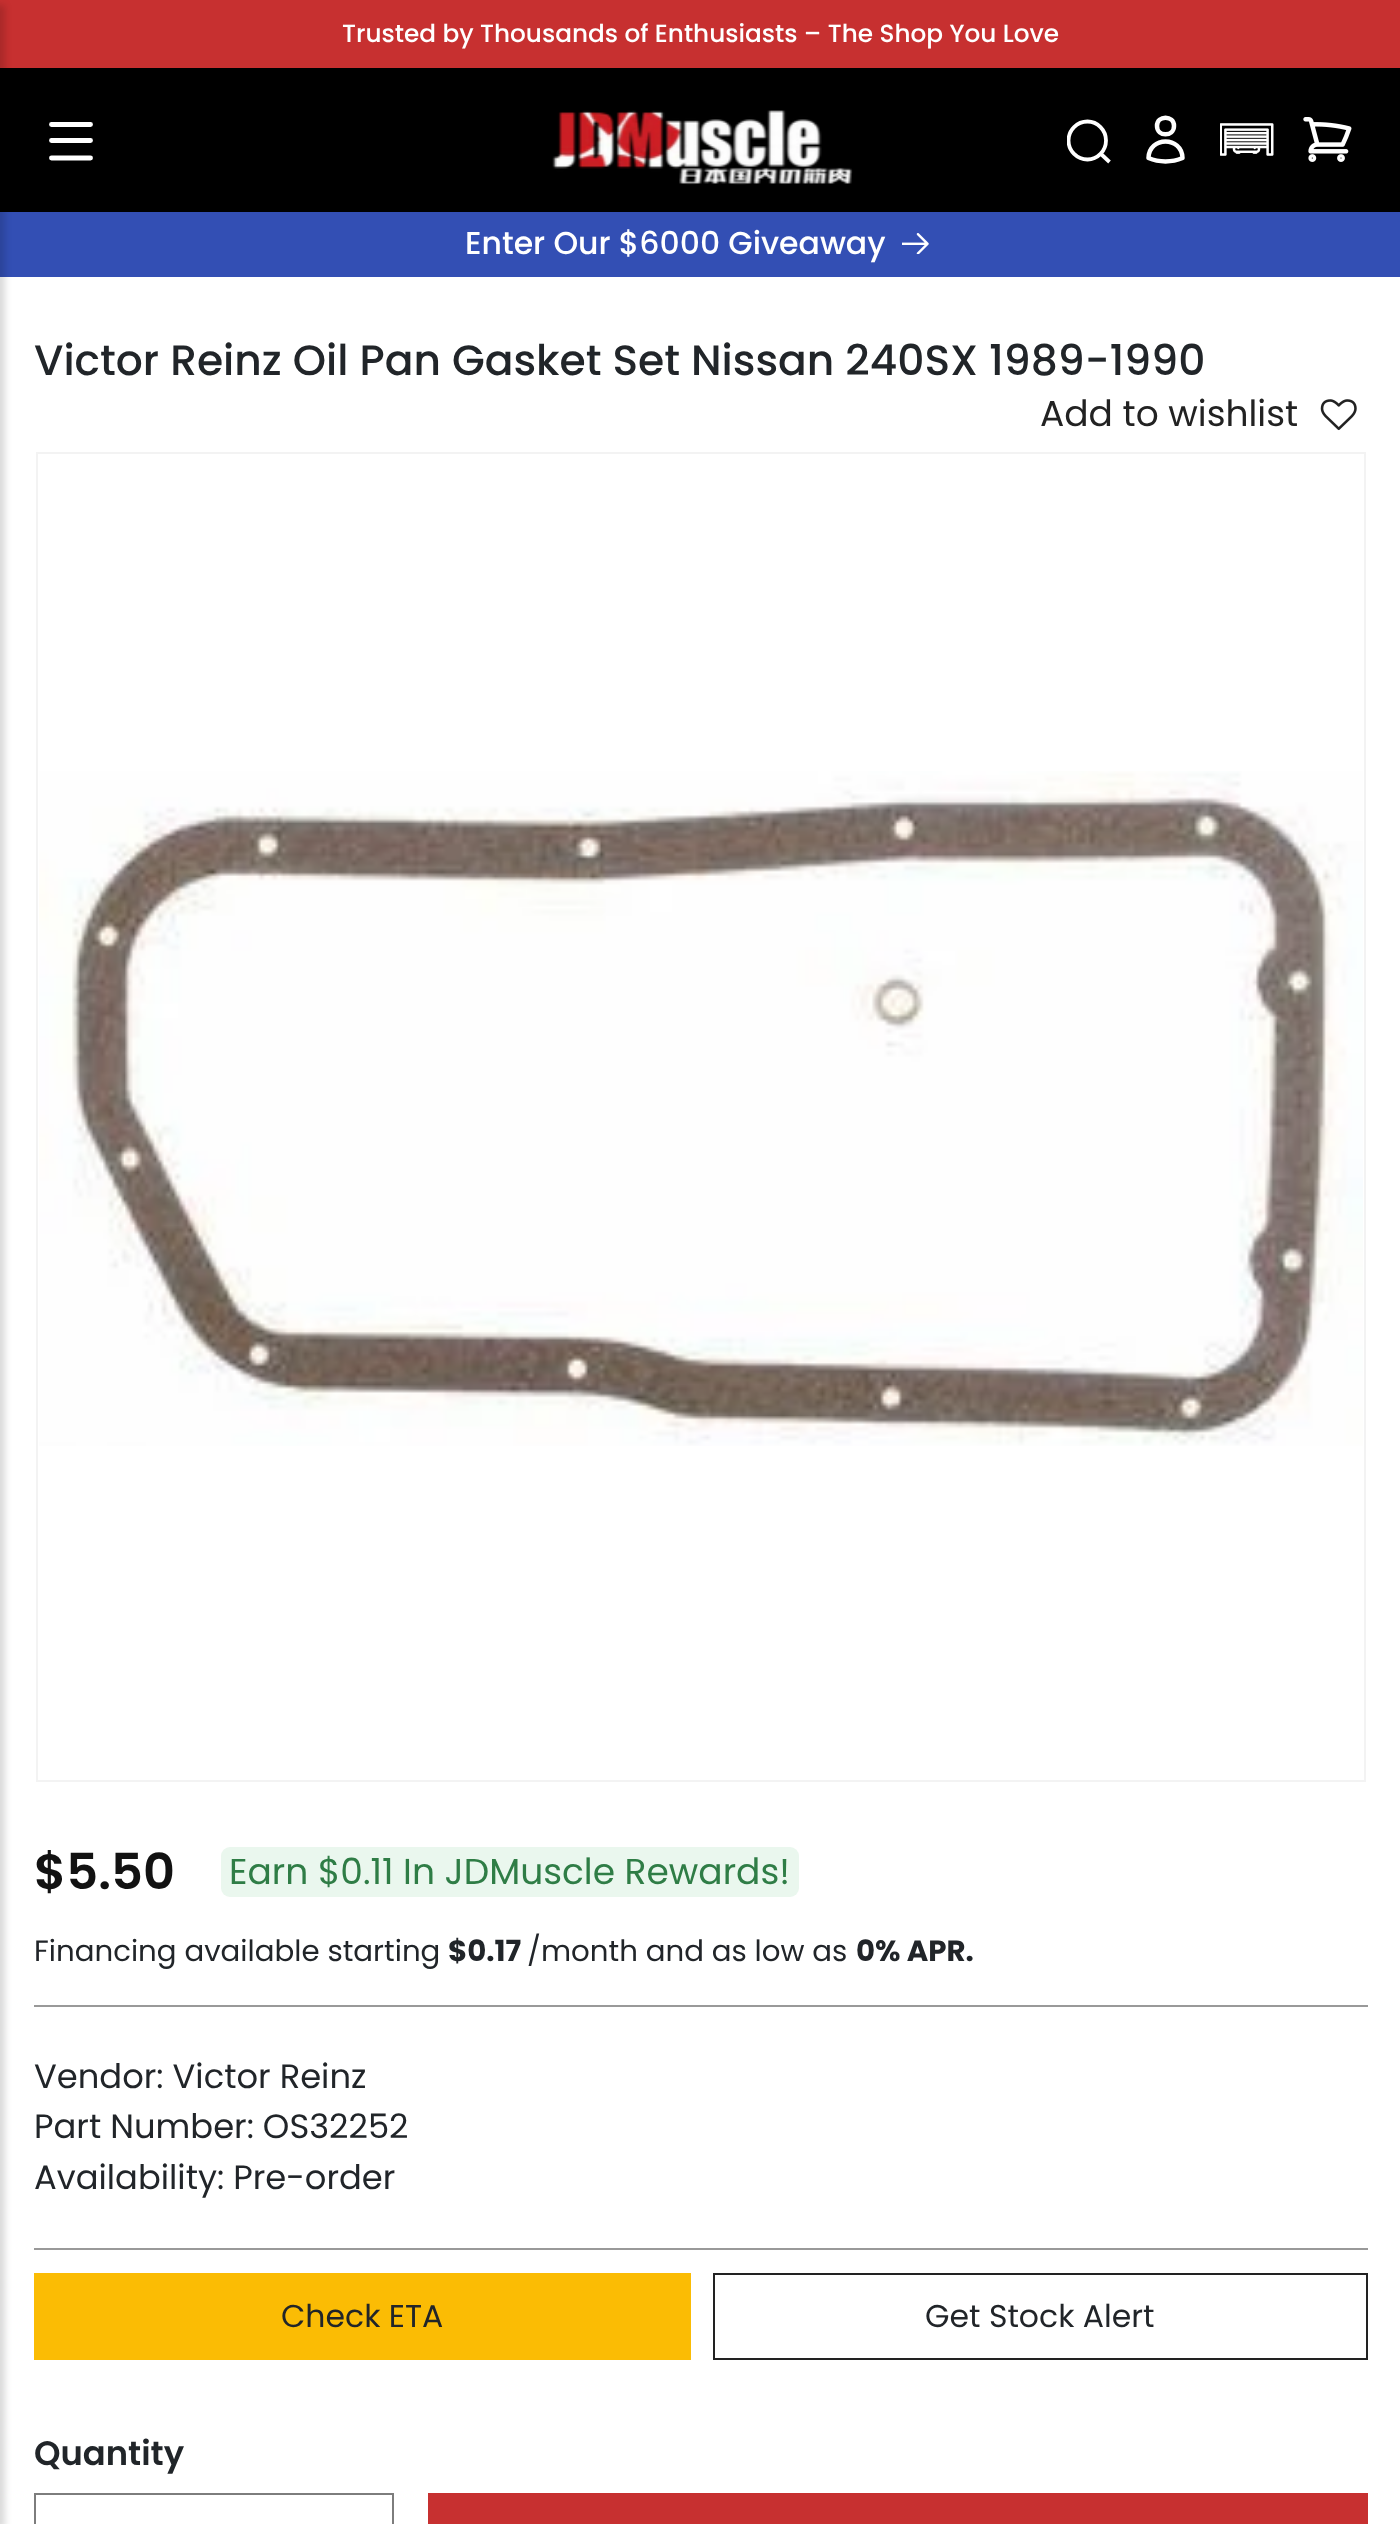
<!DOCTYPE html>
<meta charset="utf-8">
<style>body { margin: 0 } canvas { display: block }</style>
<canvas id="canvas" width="1400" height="2524"></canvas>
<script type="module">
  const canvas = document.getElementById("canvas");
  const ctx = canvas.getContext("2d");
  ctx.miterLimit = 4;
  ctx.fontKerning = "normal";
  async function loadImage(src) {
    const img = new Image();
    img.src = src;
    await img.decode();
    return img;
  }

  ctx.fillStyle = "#ffffff";
  ctx.fillRect(0, 0, 1400, 2524);
  ctx.fillStyle = "#000000";
  ctx.fillRect(0, 68, 1400, 144);
  ctx.fillStyle = "#c73030";
  ctx.fillRect(0, 0, 1400, 68);
  ctx.fillStyle = "#334fb4";
  ctx.fillRect(0, 212, 1400, 65);
  ctx.fillStyle = "rgba(0, 0, 0, 0.15)";
  ctx.filter = "blur(3.5px)";
  ctx.beginPath();
  ctx.rect(-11, 5, 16, 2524);
  ctx.fill();
  ctx.filter = "none";
  ctx.beginPath();
  ctx.moveTo(51.5, 124.5);
  ctx.lineTo(90.5, 124.5);
  ctx.moveTo(51.5, 140.5);
  ctx.lineTo(90.5, 140.5);
  ctx.moveTo(51.5, 158);
  ctx.lineTo(90.5, 158);
  ctx.strokeStyle = "#ffffff";
  ctx.lineWidth = 4.9;
  ctx.lineCap = "round";
  ctx.stroke();
  ctx.drawImage(await loadImage("img1.png"), 552, 110, 301, 75);
  ctx.save();
  ctx.beginPath();
  ctx.rect(1067, 119, 45, 45);
  ctx.clip();
  ctx.beginPath();
  ctx.moveTo(1087.5, 159.5);
  ctx.bezierCurveTo(1097.5, 159.5, 1106, 151, 1106, 140.5);
  ctx.bezierCurveTo(1106, 130, 1097.5, 121.5, 1087.5, 121.5);
  ctx.bezierCurveTo(1077, 121.5, 1068.5, 130, 1068.5, 140.5);
  ctx.bezierCurveTo(1068.5, 151, 1077, 159.5, 1087.5, 159.5);
  ctx.closePath();
  ctx.lineWidth = 3.8;
  ctx.lineCap = "butt";
  ctx.stroke();
  ctx.restore();
  ctx.beginPath();
  ctx.moveTo(1101, 154);
  ctx.lineTo(1109.5, 162);
  ctx.lineWidth = 3.8;
  ctx.lineCap = "butt";
  ctx.stroke();
  ctx.beginPath();
  ctx.moveTo(1174, 126);
  ctx.bezierCurveTo(1174, 137, 1157, 137, 1157, 126);
  ctx.bezierCurveTo(1157, 115, 1174, 115, 1174, 126);
  ctx.closePath();
  ctx.moveTo(1148.5, 158);
  ctx.bezierCurveTo(1149, 136, 1182, 136, 1182.5, 158);
  ctx.bezierCurveTo(1172, 162.5, 1159, 162.5, 1148.5, 158);
  ctx.closePath();
  ctx.lineWidth = 4.5;
  ctx.lineCap = "round";
  ctx.lineJoin = "round";
  ctx.stroke();
  ctx.drawImage(await loadImage("img2.png"), 1220, 123, 54, 33);
  ctx.drawImage(await loadImage("img3.png"), 1303, 117, 49, 45);
  ctx.font = "500 24.75px Poppins";
  ctx.fillStyle = "#ffffff";
  ctx.fillText("Trusted by Thousands of Enthusiasts – The Shop You Love", 342, 42);
  ctx.font = "500 31.5px Poppins";
  ctx.fillText("Enter Our $6000 Giveaway", 465, 254);
  ctx.drawImage(await loadImage("img4.png"), 902, 233, 27, 21);
  ctx.font = "500 42.4px Poppins";
  ctx.fillStyle = "#212529";
  ctx.fillText("Victor Reinz Oil Pan Gasket Set Nissan 240SX 1989-1990", 34, 375);
  ctx.font = "36px Poppins";
  ctx.fillStyle = "#222222";
  ctx.fillText("Add to wishlist", 1040, 426);
  ctx.drawImage(await loadImage("img5.png"), 1320, 399, 37, 32);
  ctx.strokeStyle = "#f3f3f3";
  ctx.lineWidth = 2;
  ctx.lineJoin = "miter";
  ctx.strokeRect(37, 453, 1328, 1328);
  ctx.drawImage(await loadImage("img6.png"), 39, 771, 1324, 675);
  ctx.font = "600 49.5px Poppins";
  ctx.fillStyle = "#121212";
  ctx.fillText("$5.50", 34, 1889);
  ctx.fillStyle = "#eaf7ee";
  ctx.beginPath();
  ctx.roundRect(221, 1847, 578, 50, 9);
  ctx.fill();
  ctx.font = "36px Poppins";
  ctx.fillStyle = "#2f7d46";
  ctx.fillText("Earn $0.11 In JDMuscle Rewards!", 229, 1884);
  ctx.font = "29.25px Poppins";
  ctx.fillStyle = "#212529";
  ctx.fillText("Financing available starting", 34, 1961);
  ctx.font = "bold 29.25px Poppins";
  ctx.fillText("$0.17", 448, 1961);
  ctx.font = "29.25px Poppins";
  ctx.fillText("/month and as low as", 527, 1961);
  ctx.font = "bold 29.25px Poppins";
  ctx.fillText("0% APR.", 856, 1961);
  ctx.fillStyle = "#999999";
  ctx.fillRect(34, 2005, 1334, 2);
  ctx.fillRect(34, 2248, 1334, 2);
  ctx.font = "33.75px Poppins";
  ctx.fillStyle = "#212529";
  ctx.fillText("Vendor: Victor Reinz", 34, 2088);
  ctx.fillText("Part Number: OS32252", 34, 2138);
  ctx.fillText("Availability: Pre-order", 34, 2189);
  ctx.fillStyle = "#fbbc04";
  ctx.fillRect(34, 2273, 657, 87);
  ctx.font = "31.5px Poppins";
  ctx.fillStyle = "#212529";
  ctx.fillText("Check ETA", 281, 2327);
  ctx.strokeStyle = "#222222";
  ctx.strokeRect(714, 2274, 653, 85);
  ctx.fillText("Get Stock Alert", 925, 2327);
  ctx.font = "600 33.75px Poppins";
  ctx.fillText("Quantity", 34, 2465);
  ctx.strokeStyle = "#7d7d7d";
  ctx.strokeRect(35, 2494, 358, 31);
  ctx.fillStyle = "#c73030";
  ctx.fillRect(428, 2493, 940, 31);
</script>
